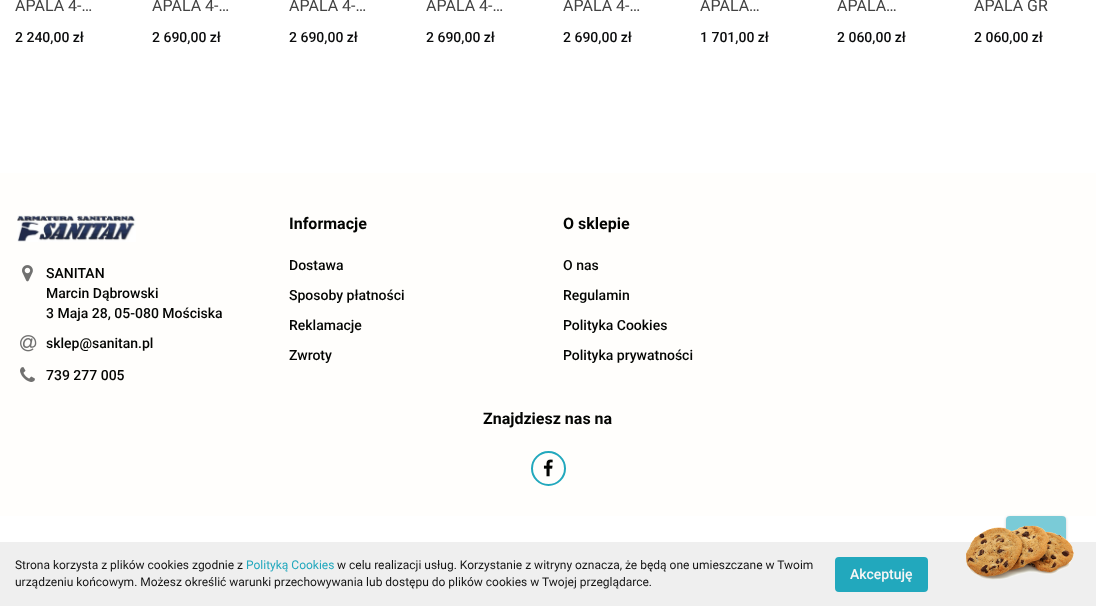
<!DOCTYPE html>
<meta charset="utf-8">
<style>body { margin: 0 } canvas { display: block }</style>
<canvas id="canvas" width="1096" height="606"></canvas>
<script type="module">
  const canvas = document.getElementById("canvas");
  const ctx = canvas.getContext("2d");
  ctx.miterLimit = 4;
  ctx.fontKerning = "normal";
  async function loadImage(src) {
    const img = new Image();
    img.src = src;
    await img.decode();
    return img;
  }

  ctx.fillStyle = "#ffffff";
  ctx.fillRect(0, 0, 1096, 606);
  ctx.font = "16px Roboto";
  ctx.fillStyle = "#424242";
  ctx.fillText("APALA 4-…", 15, 11);
  ctx.font = "500 14px Roboto";
  ctx.fillStyle = "#0a0b0c";
  ctx.fillText("2 240,00 zł", 15, 42);
  ctx.font = "16px Roboto";
  ctx.fillStyle = "#424242";
  ctx.fillText("APALA 4-…", 152, 11);
  ctx.font = "500 14px Roboto";
  ctx.fillStyle = "#0a0b0c";
  ctx.fillText("2 690,00 zł", 152, 42);
  ctx.font = "16px Roboto";
  ctx.fillStyle = "#424242";
  ctx.fillText("APALA 4-…", 289, 11);
  ctx.font = "500 14px Roboto";
  ctx.fillStyle = "#0a0b0c";
  ctx.fillText("2 690,00 zł", 289, 42);
  ctx.font = "16px Roboto";
  ctx.fillStyle = "#424242";
  ctx.fillText("APALA 4-…", 426, 11);
  ctx.font = "500 14px Roboto";
  ctx.fillStyle = "#0a0b0c";
  ctx.fillText("2 690,00 zł", 426, 42);
  ctx.font = "16px Roboto";
  ctx.fillStyle = "#424242";
  ctx.fillText("APALA 4-…", 563, 11);
  ctx.font = "500 14px Roboto";
  ctx.fillStyle = "#0a0b0c";
  ctx.fillText("2 690,00 zł", 563, 42);
  ctx.font = "16px Roboto";
  ctx.fillStyle = "#424242";
  ctx.fillText("APALA…", 700, 11);
  ctx.font = "500 14px Roboto";
  ctx.fillStyle = "#0a0b0c";
  ctx.fillText("1 701,00 zł", 700, 42);
  ctx.font = "16px Roboto";
  ctx.fillStyle = "#424242";
  ctx.fillText("APALA…", 837, 11);
  ctx.font = "500 14px Roboto";
  ctx.fillStyle = "#0a0b0c";
  ctx.fillText("2 060,00 zł", 837, 42);
  ctx.font = "16px Roboto";
  ctx.fillStyle = "#424242";
  ctx.fillText("APALA GR", 974, 11);
  ctx.font = "500 14px Roboto";
  ctx.fillStyle = "#0a0b0c";
  ctx.fillText("2 060,00 zł", 974, 42);
  ctx.fillStyle = "#fffefc";
  ctx.fillRect(0, 173, 1096, 343);
  ctx.drawImage(await loadImage("img1.png"), 17, 215, 119, 27);
  ctx.drawImage(await loadImage("img2.png"), 22, 265, 11, 17);
  ctx.fillStyle = "#030402";
  ctx.fillText("SANITAN", 46, 278);
  ctx.fillText("Marcin Dąbrowski", 46, 298);
  ctx.fillText("3 Maja 28, 05-080 Mościska", 46, 318);
  ctx.drawImage(await loadImage("img3.png"), 20, 335, 17, 17);
  ctx.fillText("sklep@sanitan.pl", 46, 348);
  ctx.drawImage(await loadImage("img4.png"), 20, 367, 15, 15);
  ctx.fillText("739 277 005", 46, 380);
  ctx.font = "bold 16px Roboto";
  ctx.fillText("Informacje", 289, 229);
  ctx.font = "500 14px Roboto";
  ctx.fillText("Dostawa", 289, 270);
  ctx.fillText("Sposoby płatności", 289, 300);
  ctx.fillText("Reklamacje", 289, 330);
  ctx.fillText("Zwroty", 289, 360);
  ctx.font = "bold 16px Roboto";
  ctx.fillText("O sklepie", 563, 229);
  ctx.font = "500 14px Roboto";
  ctx.fillText("O nas", 563, 270);
  ctx.fillText("Regulamin", 563, 300);
  ctx.fillText("Polityka Cookies", 563, 330);
  ctx.fillText("Polityka prywatności", 563, 360);
  ctx.font = "bold 16px Roboto";
  ctx.fillText("Znajdziesz nas na", 483, 424);
  ctx.beginPath();
  ctx.arc(548.5, 468.5, 16.5, 0, Math.PI * 2);
  ctx.strokeStyle = "#22a8bd";
  ctx.lineWidth = 2;
  ctx.stroke();
  ctx.drawImage(await loadImage("img5.png"), 543, 459, 10, 18);
  ctx.save();
  ctx.beginPath();
  ctx.moveTo(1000, 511);
  ctx.lineTo(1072, 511);
  ctx.lineTo(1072, 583);
  ctx.lineTo(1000, 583);
  ctx.closePath();
  ctx.moveTo(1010, 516);
  ctx.lineTo(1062, 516);
  ctx.bezierCurveTo(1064, 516, 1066, 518, 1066, 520);
  ctx.lineTo(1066, 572);
  ctx.bezierCurveTo(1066, 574, 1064, 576, 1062, 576);
  ctx.lineTo(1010, 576);
  ctx.bezierCurveTo(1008, 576, 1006, 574, 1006, 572);
  ctx.lineTo(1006, 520);
  ctx.bezierCurveTo(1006, 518, 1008, 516, 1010, 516);
  ctx.closePath();
  ctx.clip("evenodd");
  ctx.fillStyle = "rgba(0, 0, 0, 0.2)";
  ctx.filter = "blur(1.5px)";
  ctx.beginPath();
  ctx.roundRect(1006, 517, 60, 60, 4);
  ctx.fill();
  ctx.filter = "none";
  ctx.restore();
  ctx.fillStyle = "rgba(34, 168, 189, 0.6)";
  ctx.beginPath();
  ctx.roundRect(1006, 516, 60, 60, 4);
  ctx.fill();
  ctx.fillStyle = "#efefef";
  ctx.fillRect(0, 542, 1096, 64);
  ctx.font = "12px Roboto";
  ctx.fillStyle = "#131313";
  ctx.fillText("Strona korzysta z plików cookies zgodnie z", 15, 569);
  ctx.fillStyle = "#22a8bd";
  ctx.fillText("Polityką Cookies", 246, 569);
  ctx.fillStyle = "#131313";
  ctx.fillText("w celu realizacji usług. Korzystanie z witryny oznacza, że będą one umieszczane w Twoim", 337, 569);
  ctx.fillText("urządzeniu końcowym. Możesz określić warunki przechowywania lub dostępu do plików cookies w Twojej przeglądarce.", 15, 586);
  ctx.fillStyle = "#22a8bd";
  ctx.beginPath();
  ctx.roundRect(836.5, 558.5, 90, 32, 2.5);
  ctx.fill();
  ctx.lineWidth = 3;
  ctx.stroke();
  ctx.font = "500 14px Roboto";
  ctx.fillStyle = "#f8f6f6";
  ctx.fillText("Akceptuję", 850, 579);
  ctx.drawImage(await loadImage("img6.png"), 966, 525, 108, 55);
</script>
